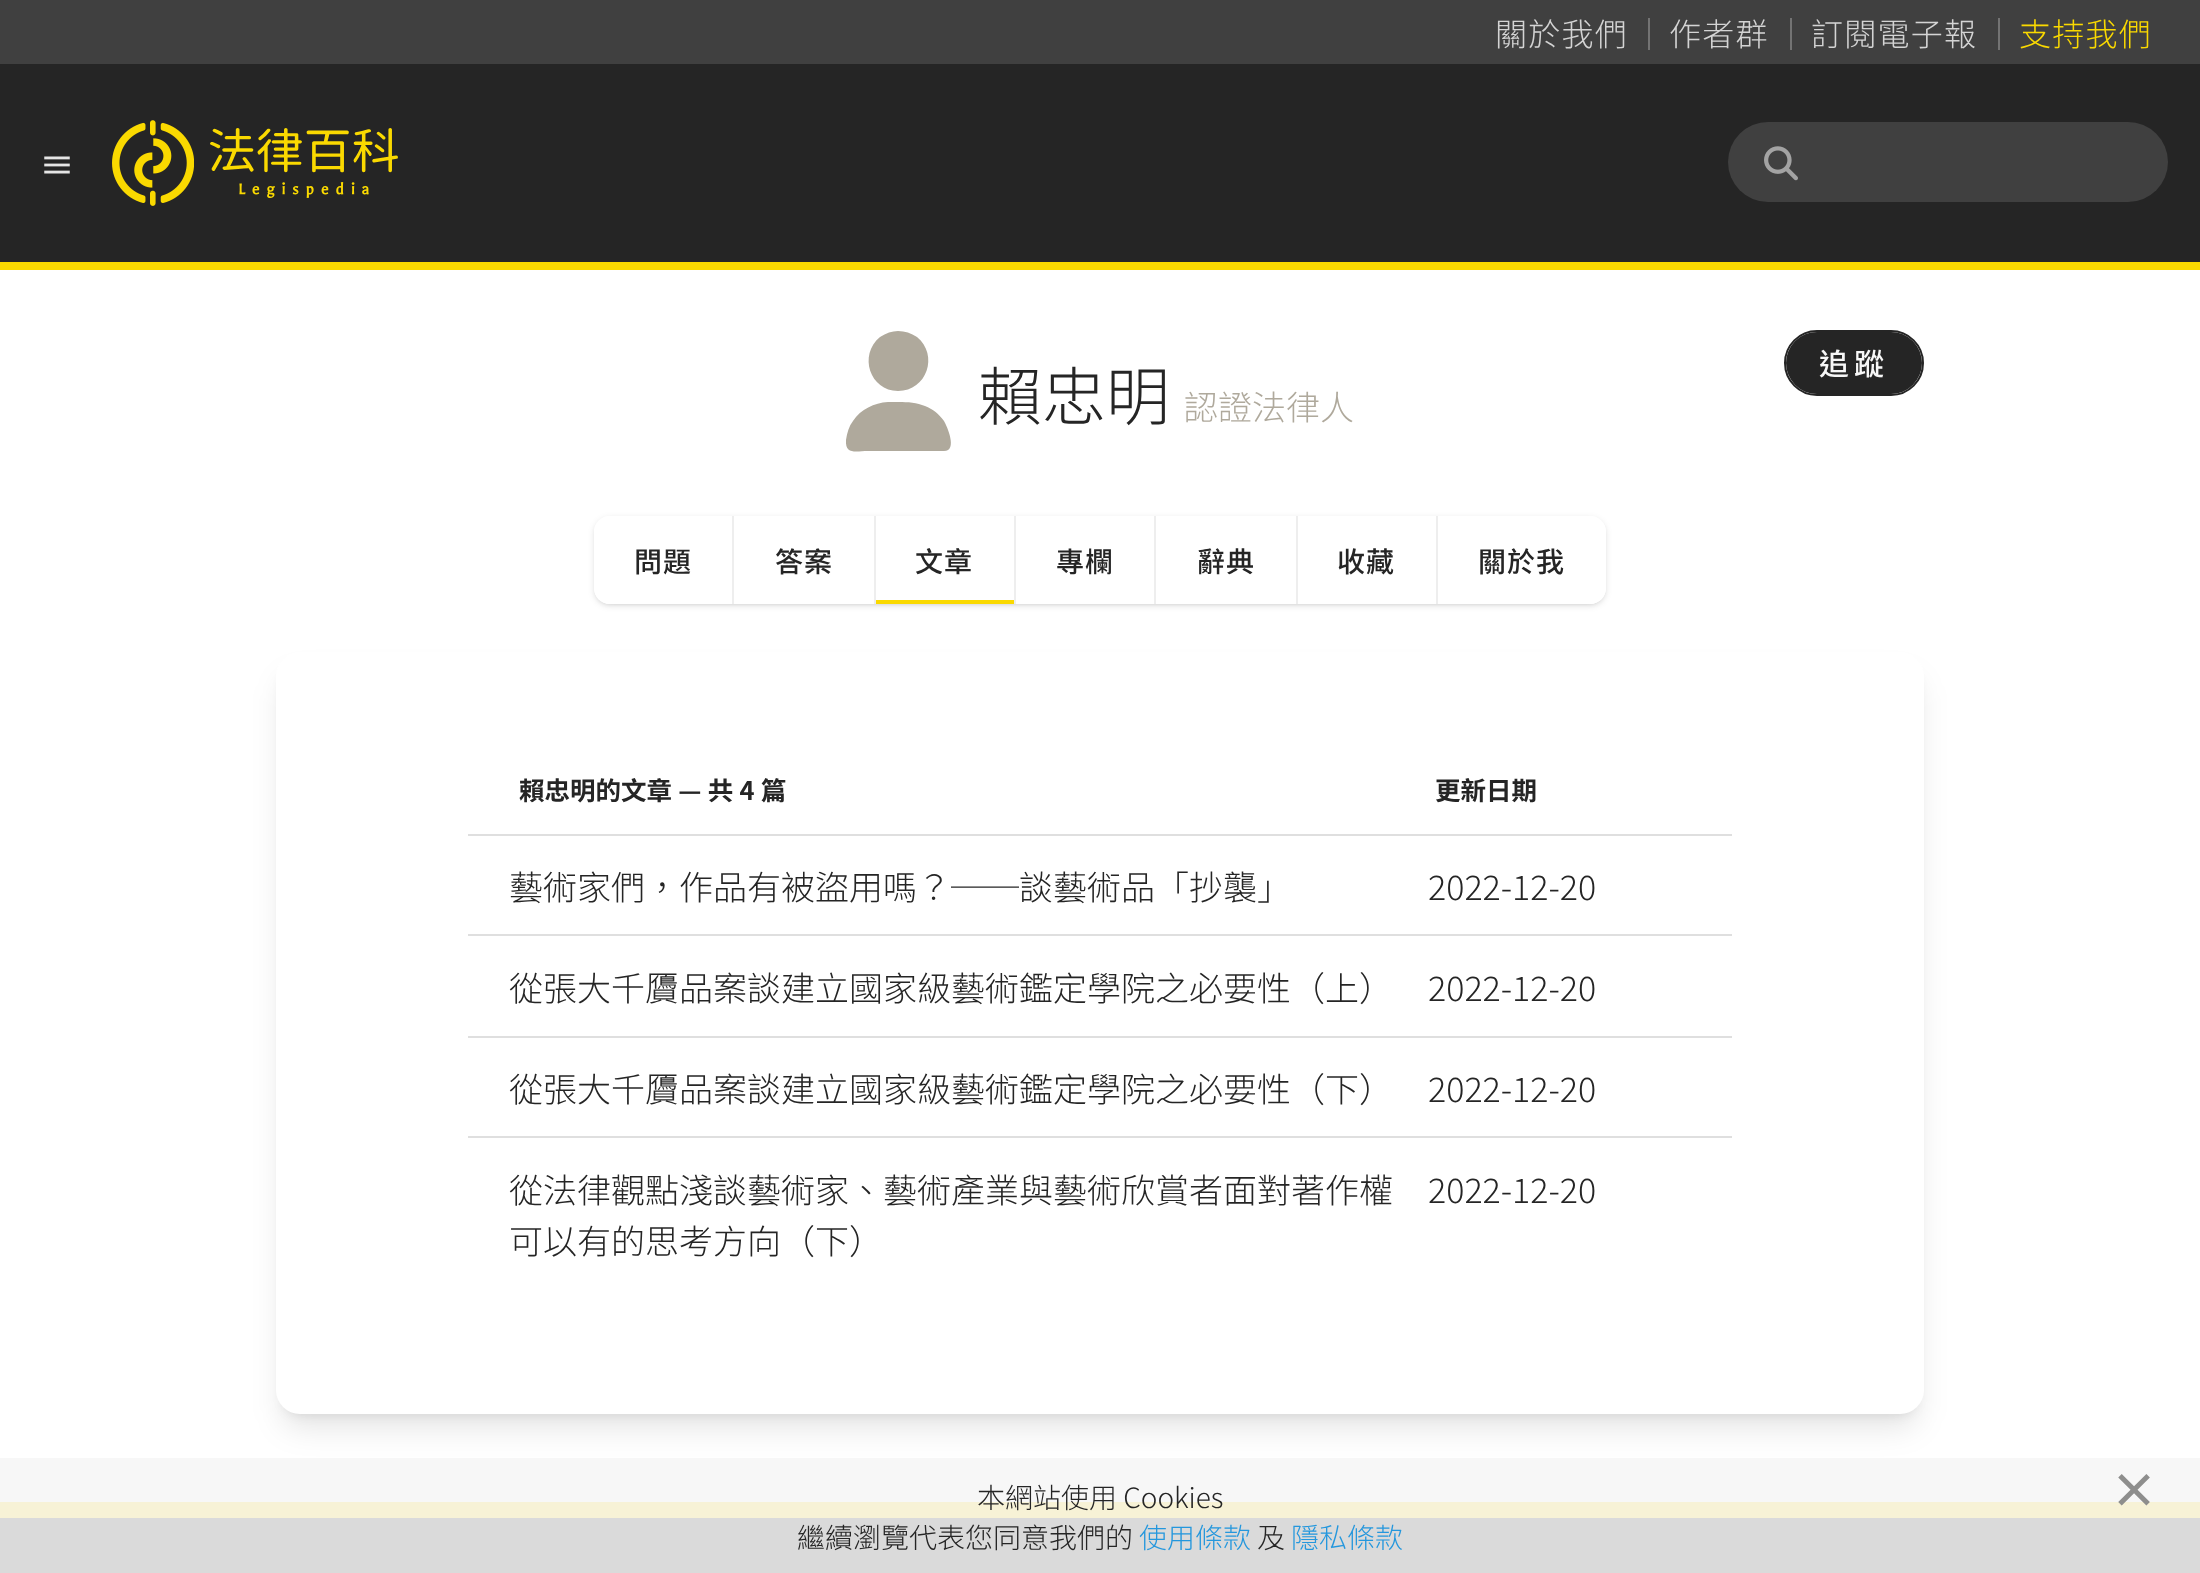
<!DOCTYPE html>
<meta charset="utf-8">
<style>body { margin: 0 } canvas { display: block }</style>
<canvas id="canvas" width="2200" height="1573"></canvas>
<script type="module">
  const canvas = document.getElementById("canvas");
  const ctx = canvas.getContext("2d");
  ctx.miterLimit = 4;
  ctx.fontKerning = "normal";
  async function loadImage(src) {
    const img = new Image();
    img.src = src;
    await img.decode();
    return img;
  }

  ctx.fillStyle = "#ffffff";
  ctx.fillRect(0, 0, 2200, 1573);
  ctx.fillStyle = "#404040";
  ctx.fillRect(0, 0, 2200, 64);
  ctx.letterSpacing = "1.25px";
  ctx.font = "300 32px Noto Sans TC";
  ctx.fillStyle = "#d4d4d4";
  ctx.fillText("關於我們", 1495, 46);
  ctx.fillStyle = "#737373";
  ctx.fillRect(1648, 18, 2, 32);
  ctx.fillStyle = "#d4d4d4";
  ctx.fillText("作者群", 1669, 46);
  ctx.fillStyle = "#737373";
  ctx.fillRect(1790, 18, 2, 32);
  ctx.fillStyle = "#d4d4d4";
  ctx.fillText("訂閱電子報", 1811, 46);
  ctx.fillStyle = "#737373";
  ctx.fillRect(1998, 18, 2, 32);
  ctx.fillStyle = "#fad900";
  ctx.fillText("支持我們", 2019, 46);
  ctx.fillStyle = "#252525";
  ctx.fillRect(0, 64, 2200, 198);
  ctx.fillStyle = "#fad900";
  ctx.fillRect(0, 262, 2200, 8);
  ctx.drawImage(await loadImage("img1.png"), 44, 156, 26, 18);
  ctx.drawImage(await loadImage("img2.png"), 112, 120, 82, 86);
  ctx.drawImage(await loadImage("img3.png"), 210, 128, 188, 70);
  ctx.fillStyle = "#404040";
  ctx.beginPath();
  ctx.roundRect(1728, 122, 440, 80, 40);
  ctx.fill();
  ctx.drawImage(await loadImage("img4.png"), 1764, 146, 34, 35);
  ctx.fillStyle = "#afa99c";
  ctx.beginPath();
  ctx.moveTo(898, 391);
  ctx.bezierCurveTo(927, 391, 939, 355, 917, 337);
  ctx.bezierCurveTo(911, 333, 905, 331, 898, 331);
  ctx.bezierCurveTo(892, 331, 886, 333, 880, 337);
  ctx.bezierCurveTo(858, 355, 870, 391, 898, 391);
  ctx.closePath();
  ctx.moveTo(888, 402);
  ctx.bezierCurveTo(874, 403, 861, 409, 853, 421);
  ctx.bezierCurveTo(849, 426, 847, 433, 846, 440);
  ctx.bezierCurveTo(845, 455, 856, 451, 868, 451);
  ctx.lineTo(944, 451);
  ctx.bezierCurveTo(958, 451, 947, 426, 944, 421);
  ctx.bezierCurveTo(939, 414, 933, 409, 925, 406);
  ctx.bezierCurveTo(914, 401, 900, 402, 888, 402);
  ctx.closePath();
  ctx.fill();
  ctx.letterSpacing = "0px";
  ctx.font = "300 64px Noto Sans TC";
  ctx.fillStyle = "#252525";
  ctx.fillText("賴忠明", 978, 420);
  ctx.font = "300 34px Noto Sans TC";
  ctx.fillStyle = "#afa99c";
  ctx.fillText("認證法律人", 1184, 420);
  ctx.beginPath();
  ctx.roundRect(1785, 331, 138, 64, 32);
  ctx.strokeStyle = "#252525";
  ctx.lineWidth = 2;
  ctx.stroke();
  ctx.fillStyle = "#252525";
  ctx.beginPath();
  ctx.roundRect(1786, 332, 136, 62, 31);
  ctx.fill();
  ctx.letterSpacing = "5px";
  ctx.font = "500 30px Noto Sans TC";
  ctx.fillStyle = "#f7f7f7";
  ctx.fillText("追蹤", 1819, 375);
  ctx.save();
  ctx.beginPath();
  ctx.moveTo(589, 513);
  ctx.lineTo(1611, 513);
  ctx.lineTo(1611, 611);
  ctx.lineTo(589, 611);
  ctx.closePath();
  ctx.moveTo(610, 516);
  ctx.lineTo(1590, 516);
  ctx.bezierCurveTo(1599, 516, 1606, 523, 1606, 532);
  ctx.lineTo(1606, 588);
  ctx.bezierCurveTo(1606, 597, 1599, 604, 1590, 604);
  ctx.lineTo(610, 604);
  ctx.bezierCurveTo(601, 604, 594, 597, 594, 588);
  ctx.lineTo(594, 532);
  ctx.bezierCurveTo(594, 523, 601, 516, 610, 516);
  ctx.closePath();
  ctx.clip("evenodd");
  ctx.fillStyle = "rgba(0, 0, 0, 0.1)";
  ctx.filter = "blur(2px)";
  ctx.beginPath();
  ctx.roundRect(596, 520, 1008, 84, 14);
  ctx.fill();
  ctx.filter = "none";
  ctx.restore();
  ctx.save();
  ctx.beginPath();
  ctx.moveTo(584, 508);
  ctx.lineTo(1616, 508);
  ctx.lineTo(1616, 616);
  ctx.lineTo(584, 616);
  ctx.closePath();
  ctx.moveTo(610, 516);
  ctx.lineTo(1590, 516);
  ctx.bezierCurveTo(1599, 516, 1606, 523, 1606, 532);
  ctx.lineTo(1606, 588);
  ctx.bezierCurveTo(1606, 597, 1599, 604, 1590, 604);
  ctx.lineTo(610, 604);
  ctx.bezierCurveTo(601, 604, 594, 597, 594, 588);
  ctx.lineTo(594, 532);
  ctx.bezierCurveTo(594, 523, 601, 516, 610, 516);
  ctx.closePath();
  ctx.clip("evenodd");
  ctx.fillStyle = "rgba(0, 0, 0, 0.1)";
  ctx.filter = "blur(3px)";
  ctx.beginPath();
  ctx.roundRect(594, 518, 1012, 88, 16);
  ctx.fill();
  ctx.filter = "none";
  ctx.restore();
  ctx.fillStyle = "#ffffff";
  ctx.beginPath();
  ctx.roundRect(594, 516, 138, 88, [16, 0, 0, 16]);
  ctx.fill();
  ctx.letterSpacing = "1px";
  ctx.font = "500 28px Noto Sans TC";
  ctx.fillStyle = "#252525";
  ctx.fillText("問題", 634, 572);
  ctx.fillStyle = "#eeeeee";
  ctx.fillRect(732, 516, 2, 88);
  ctx.fillStyle = "#252525";
  ctx.fillText("答案", 775, 572);
  ctx.fillStyle = "#eeeeee";
  ctx.fillRect(874, 516, 2, 88);
  ctx.fillStyle = "#252525";
  ctx.fillText("文章", 915, 572);
  ctx.fillStyle = "#fad900";
  ctx.fillRect(876, 600, 138, 4);
  ctx.fillStyle = "#eeeeee";
  ctx.fillRect(1014, 516, 2, 88);
  ctx.fillStyle = "#252525";
  ctx.fillText("專欄", 1056, 572);
  ctx.fillStyle = "#eeeeee";
  ctx.fillRect(1154, 516, 2, 88);
  ctx.fillStyle = "#252525";
  ctx.fillText("辭典", 1197, 572);
  ctx.fillStyle = "#eeeeee";
  ctx.fillRect(1296, 516, 2, 88);
  ctx.fillStyle = "#252525";
  ctx.fillText("收藏", 1337, 572);
  ctx.fillStyle = "#ffffff";
  ctx.beginPath();
  ctx.roundRect(1438, 516, 168, 88, [0, 16, 16, 0]);
  ctx.fill();
  ctx.fillStyle = "#eeeeee";
  ctx.fillRect(1436, 516, 2, 88);
  ctx.fillStyle = "#252525";
  ctx.fillText("關於我", 1478, 572);
  ctx.fillStyle = "rgba(0, 0, 0, 0.1)";
  ctx.filter = "blur(6px)";
  ctx.beginPath();
  ctx.roundRect(284, 668, 1632, 746, 16);
  ctx.fill();
  ctx.filter = "none";
  ctx.filter = "blur(15px)";
  ctx.beginPath();
  ctx.roundRect(282, 678, 1636, 750, 18);
  ctx.fill();
  ctx.filter = "none";
  ctx.fillStyle = "#ffffff";
  ctx.beginPath();
  ctx.roundRect(276, 652, 1648, 762, 24);
  ctx.fill();
  ctx.fillStyle = "#dfdfdf";
  ctx.fillRect(468, 834, 1264, 2);
  ctx.letterSpacing = "0px";
  ctx.wordSpacing = "0.5px";
  ctx.font = "bold 25.5px Noto Sans TC";
  ctx.fillStyle = "#252525";
  ctx.fillText("賴忠明的文章 — 共 4 篇", 519, 800);
  ctx.wordSpacing = "0px";
  ctx.fillText("更新日期", 1435, 800);
  ctx.fillStyle = "#dfdfdf";
  ctx.fillRect(468, 934, 1264, 2);
  ctx.font = "300 34px Noto Sans TC";
  ctx.fillStyle = "#252525";
  ctx.fillText("藝術家們，作品有被盜用嗎？──談藝術品「抄襲」", 509, 900);
  ctx.fillText("2022-12-20", 1428, 900);
  ctx.fillStyle = "#dfdfdf";
  ctx.fillRect(468, 1036, 1264, 2);
  ctx.fillStyle = "#252525";
  ctx.fillText("從張大千贗品案談建立國家級藝術鑑定學院之必要性（上）", 509, 1001);
  ctx.fillText("2022-12-20", 1428, 1001);
  ctx.fillStyle = "#dfdfdf";
  ctx.fillRect(468, 1136, 1264, 2);
  ctx.fillStyle = "#252525";
  ctx.fillText("從張大千贗品案談建立國家級藝術鑑定學院之必要性（下）", 509, 1102);
  ctx.fillText("2022-12-20", 1428, 1102);
  ctx.fillText("從法律觀點淺談藝術家、藝術產業與藝術欣賞者面對著作權", 509, 1203);
  ctx.fillText("可以有的思考方向（下）", 509, 1254);
  ctx.fillText("2022-12-20", 1428, 1203);
  ctx.fillRect(0, 1518, 2200, 55);
  ctx.fillStyle = "#fad900";
  ctx.fillRect(0, 1502, 2200, 16);
  ctx.fillStyle = "rgba(246, 246, 246, 0.87)";
  ctx.fillRect(0, 1458, 2200, 115);
  ctx.font = "300 28px Noto Sans TC";
  ctx.fillStyle = "#252525";
  ctx.fillText("本網站使用 Cookies", 977, 1508);
  ctx.font = "bold 48px Noto Sans TC";
  ctx.fillStyle = "#8e8e8d";
  ctx.fillText("×", 2110, 1508);
  ctx.font = "300 28px Noto Sans TC";
  ctx.fillStyle = "#252525";
  ctx.fillText("繼續瀏覽代表您同意我們的", 797, 1548);
  ctx.fillStyle = "#2497dd";
  ctx.fillText("使用條款", 1139, 1548);
  ctx.fillStyle = "#252525";
  ctx.fillText("及", 1257, 1548);
  ctx.fillStyle = "#2497dd";
  ctx.fillText("隱私條款", 1291, 1548);
</script>
